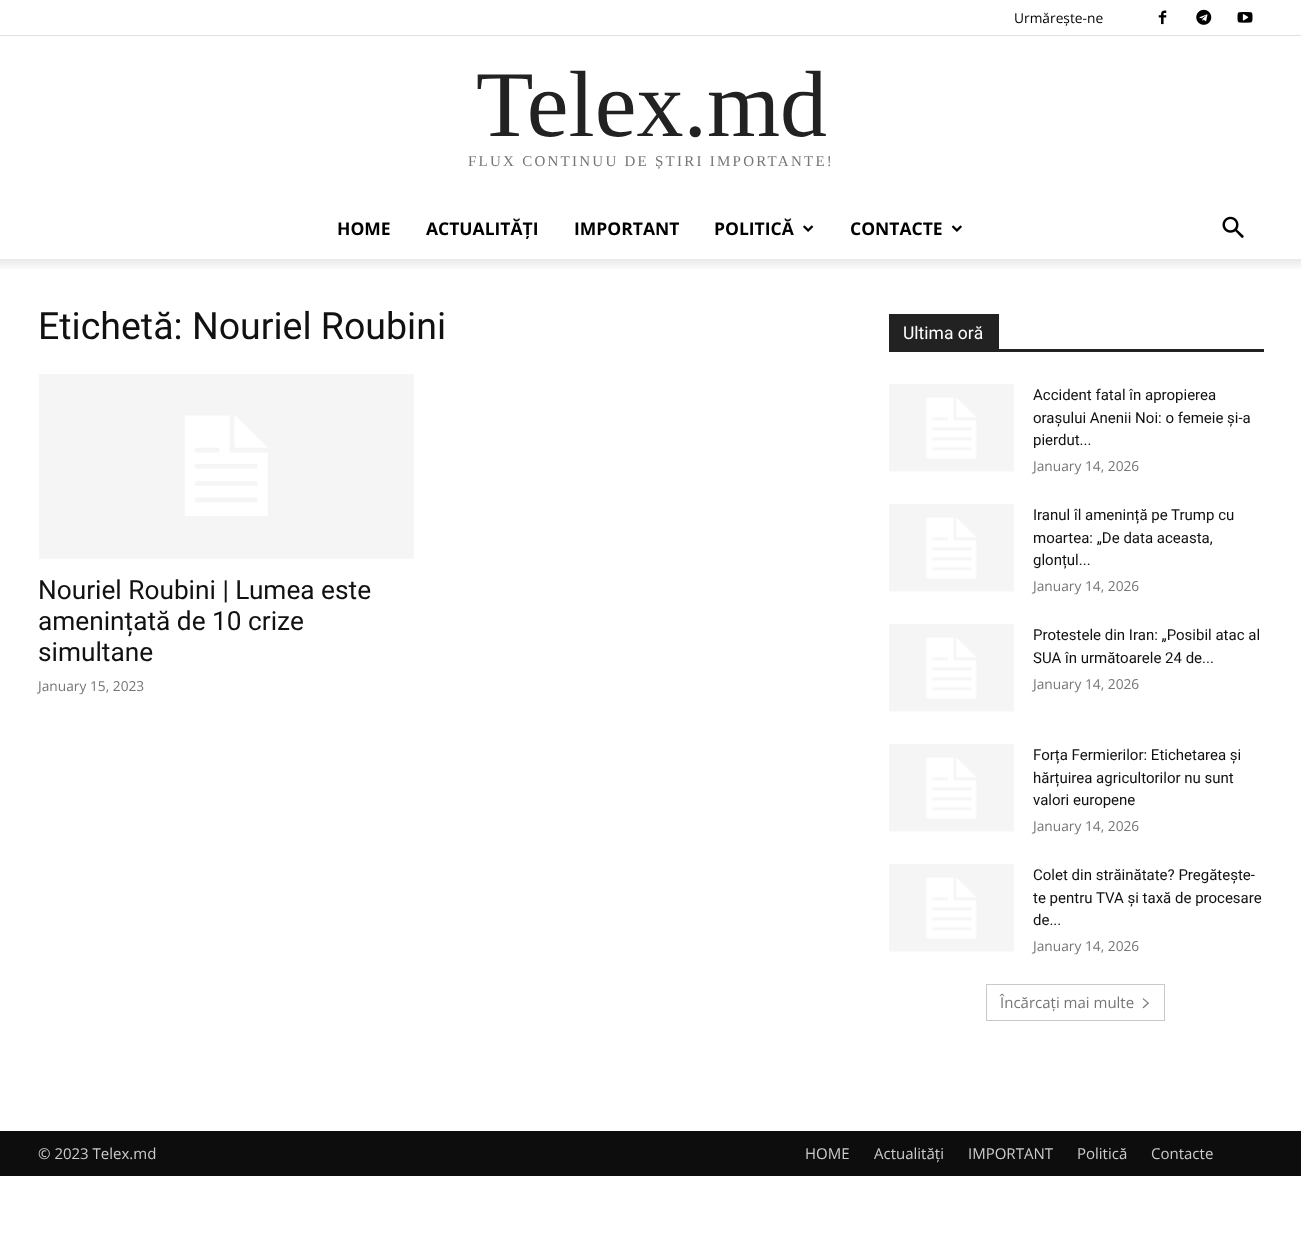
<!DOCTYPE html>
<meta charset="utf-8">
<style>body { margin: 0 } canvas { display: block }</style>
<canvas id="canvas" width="1301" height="1234"></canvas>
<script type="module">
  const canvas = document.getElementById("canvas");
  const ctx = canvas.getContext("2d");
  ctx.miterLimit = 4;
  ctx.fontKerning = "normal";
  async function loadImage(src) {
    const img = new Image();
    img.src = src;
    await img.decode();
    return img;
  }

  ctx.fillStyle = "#ffffff";
  ctx.fillRect(0, 0, 1301, 1234);
  ctx.fillStyle = "#e0e0e0";
  ctx.fillRect(0, 35, 1301, 1);
  ctx.font = "13.75px Open Sans";
  ctx.fillStyle = "#000000";
  ctx.fillText("Urmărește-ne", 1014, 23);
  ctx.drawImage(await loadImage("img1.png"), 1158, 10, 9, 15);
  ctx.drawImage(await loadImage("img2.png"), 1196, 9, 16, 16);
  ctx.drawImage(await loadImage("img3.png"), 1237, 12, 16, 11);
  ctx.font = "94px Liberation Serif";
  ctx.fillStyle = "#222222";
  ctx.fillText("Telex.md", 476, 136);
  ctx.letterSpacing = "2.25px";
  ctx.font = "15px Liberation Serif";
  ctx.fillStyle = "#767676";
  ctx.fillText("FLUX CONTINUU DE ȘTIRI IMPORTANTE!", 468, 166);
  ctx.letterSpacing = "0px";
  ctx.font = "bold 17.5px Open Sans";
  ctx.fillStyle = "#000000";
  ctx.fillText("HOME", 337, 235);
  ctx.fillText("ACTUALITĂȚI", 426, 235);
  ctx.fillText("IMPORTANT", 574, 235);
  ctx.fillText("POLITICĂ", 714, 235);
  ctx.drawImage(await loadImage("img4.png"), 803, 225, 11, 7);
  ctx.fillText("CONTACTE", 850, 235);
  ctx.drawImage(await loadImage("img5.png"), 951, 225, 11, 7);
  ctx.drawImage(await loadImage("img6.png"), 1222, 216, 22, 22);
  ctx.drawImage(await loadImage("img7.png"), 0, 259, 1301, 10);
  ctx.font = "37.5px Roboto";
  ctx.fillStyle = "#111111";
  ctx.fillText("Etichetă: Nouriel Roubini", 38, 339);
  ctx.drawImage(await loadImage("img8.png"), 39, 374, 375, 185);
  ctx.font = "26.25px Roboto";
  ctx.fillText("Nouriel Roubini | Lumea este", 38, 599);
  ctx.fillText("amenințată de 10 crize", 38, 630);
  ctx.fillText("simultane", 38, 661);
  ctx.font = "13.75px Open Sans";
  ctx.fillStyle = "#767676";
  ctx.fillText("January 15, 2023", 38, 691);
  ctx.fillStyle = "#222222";
  ctx.fillRect(889, 349, 375, 3);
  ctx.fillRect(889, 314, 110, 35);
  ctx.font = "17.5px Roboto";
  ctx.fillStyle = "#ffffff";
  ctx.fillText("Ultima oră", 903, 339);
  ctx.drawImage(await loadImage("img9.png"), 889, 384, 125, 88);
  ctx.font = "15px Roboto";
  ctx.fillStyle = "#111111";
  ctx.fillText("Accident fatal în apropierea", 1033, 400);
  ctx.fillText("orașului Anenii Noi: o femeie și-a", 1033, 423);
  ctx.fillText("pierdut...", 1033, 445);
  ctx.font = "13.75px Open Sans";
  ctx.fillStyle = "#767676";
  ctx.fillText("January 14, 2026", 1033, 471);
  ctx.drawImage(await loadImage("img9.png"), 889, 504, 125, 88);
  ctx.font = "15px Roboto";
  ctx.fillStyle = "#111111";
  ctx.fillText("Iranul îl amenință pe Trump cu", 1033, 520);
  ctx.fillText("moartea: „De data aceasta,", 1033, 543);
  ctx.fillText("glonțul...", 1033, 565);
  ctx.font = "13.75px Open Sans";
  ctx.fillStyle = "#767676";
  ctx.fillText("January 14, 2026", 1033, 591);
  ctx.drawImage(await loadImage("img9.png"), 889, 624, 125, 88);
  ctx.font = "15px Roboto";
  ctx.fillStyle = "#111111";
  ctx.fillText("Protestele din Iran: „Posibil atac al", 1033, 640);
  ctx.fillText("SUA în următoarele 24 de...", 1033, 663);
  ctx.font = "13.75px Open Sans";
  ctx.fillStyle = "#767676";
  ctx.fillText("January 14, 2026", 1033, 689);
  ctx.drawImage(await loadImage("img9.png"), 889, 744, 125, 88);
  ctx.font = "15px Roboto";
  ctx.fillStyle = "#111111";
  ctx.fillText("Forța Fermierilor: Etichetarea și", 1033, 760);
  ctx.fillText("hărțuirea agricultorilor nu sunt", 1033, 783);
  ctx.fillText("valori europene", 1033, 805);
  ctx.font = "13.75px Open Sans";
  ctx.fillStyle = "#767676";
  ctx.fillText("January 14, 2026", 1033, 831);
  ctx.drawImage(await loadImage("img10.png"), 889, 864, 125, 88);
  ctx.font = "15px Roboto";
  ctx.fillStyle = "#111111";
  ctx.fillText("Colet din străinătate? Pregătește-", 1033, 880);
  ctx.fillText("te pentru TVA și taxă de procesare", 1033, 903);
  ctx.fillText("de...", 1033, 925);
  ctx.font = "13.75px Open Sans";
  ctx.fillStyle = "#767676";
  ctx.fillText("January 14, 2026", 1033, 951);
  ctx.strokeStyle = "#c9c9c9";
  ctx.strokeRect(986.5, 984.5, 178, 36);
  ctx.font = "15px Open Sans";
  ctx.fillText("Încărcați mai multe", 1000, 1008);
  ctx.drawImage(await loadImage("img11.png"), 1142, 998, 7, 11);
  ctx.fillStyle = "#0d0d0d";
  ctx.fillRect(0, 1131, 1301, 45);
  ctx.fillStyle = "#cccccc";
  ctx.fillText("© 2023 Telex.md", 38, 1159);
  ctx.fillText("HOME", 805, 1159);
  ctx.fillText("Actualități", 874, 1159);
  ctx.fillText("IMPORTANT", 968, 1159);
  ctx.fillText("Politică", 1077, 1159);
  ctx.fillText("Contacte", 1151, 1159);
</script>
